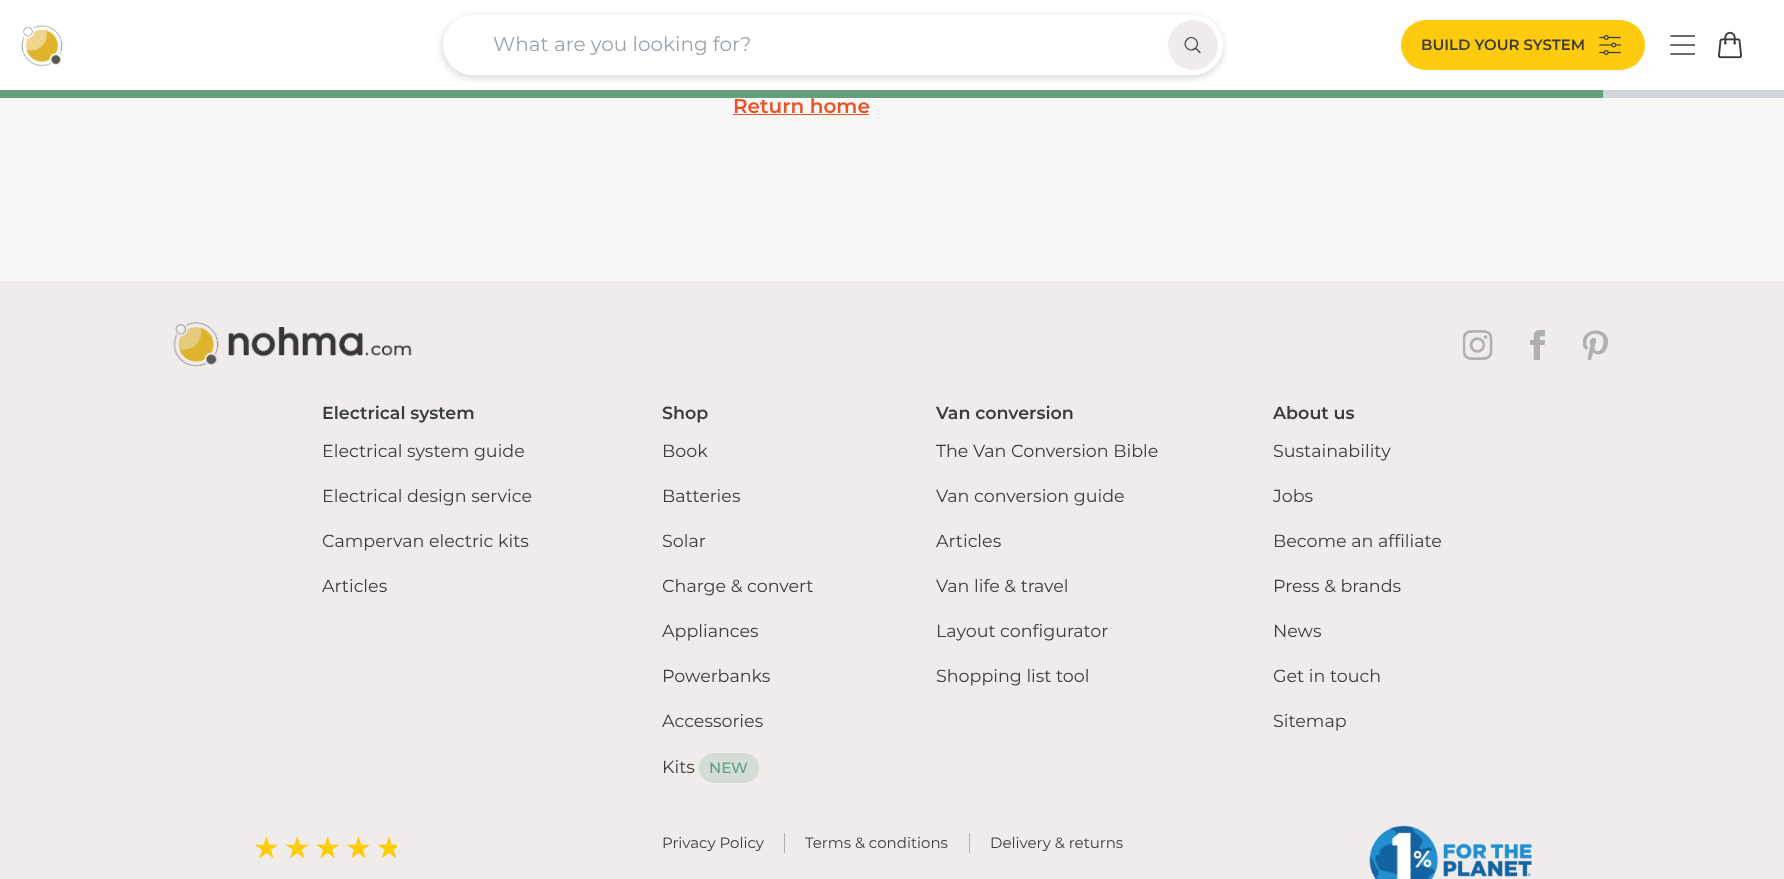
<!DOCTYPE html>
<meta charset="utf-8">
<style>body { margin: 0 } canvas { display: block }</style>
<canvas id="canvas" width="1784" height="879"></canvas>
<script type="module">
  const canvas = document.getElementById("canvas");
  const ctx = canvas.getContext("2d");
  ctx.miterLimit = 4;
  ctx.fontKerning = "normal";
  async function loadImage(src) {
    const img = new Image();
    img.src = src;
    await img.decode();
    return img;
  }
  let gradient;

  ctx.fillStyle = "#f7f7f7";
  ctx.fillRect(0, 0, 1784, 879);
  ctx.fillStyle = "#ffffff";
  ctx.fillRect(0, 0, 1784, 90);
  ctx.drawImage(await loadImage("img1.png"), 21, 25, 42, 42);
  ctx.fillStyle = "rgba(64, 60, 67, 0.16)";
  ctx.filter = "blur(3px)";
  ctx.beginPath();
  ctx.roundRect(441, 16, 783, 63, 31.5);
  ctx.fill();
  ctx.filter = "none";
  ctx.fillStyle = "#ffffff";
  ctx.beginPath();
  ctx.roundRect(443, 15, 780, 60, 30);
  ctx.fill();
  ctx.font = "100 20px 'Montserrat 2'";
  ctx.fillStyle = "#9ca3af";
  ctx.fillText("What are you looking for?", 493, 51);
  ctx.fillStyle = "#efeceb";
  ctx.beginPath();
  ctx.arc(1193, 45, 25, 0, Math.PI * 2);
  ctx.fill();
  ctx.beginPath();
  ctx.moveTo(1200, 52.5);
  ctx.lineTo(1195.5, 48);
  ctx.moveTo(1195.5, 48);
  ctx.bezierCurveTo(1201.5, 42.5, 1192.5, 33.5, 1187, 39.5);
  ctx.bezierCurveTo(1181, 45, 1190, 54, 1195.5, 48);
  ctx.closePath();
  ctx.strokeStyle = "#3c3c3b";
  ctx.lineWidth = 1.2;
  ctx.lineCap = "round";
  ctx.lineJoin = "round";
  ctx.stroke();
  ctx.fillStyle = "rgba(0, 0, 0, 0.05)";
  ctx.filter = "blur(1px)";
  ctx.beginPath();
  ctx.roundRect(1401, 21, 244, 50, 25);
  ctx.fill();
  ctx.filter = "none";
  ctx.fillStyle = "#ffcb0f";
  ctx.beginPath();
  ctx.roundRect(1401, 20, 244, 50, 25);
  ctx.fill();
  ctx.font = "100 15px Montserrat";
  ctx.fillStyle = "#3c3c3b";
  ctx.fillText("BUILD YOUR SYSTEM", 1421, 50);
  ctx.drawImage(await loadImage("img2.png"), 1599, 35, 22, 20);
  ctx.save();
  ctx.beginPath();
  ctx.rect(1665, 25, 30, 30);
  ctx.clip();
  ctx.beginPath();
  ctx.moveTo(1671, 36);
  ctx.lineTo(1699, 36);
  ctx.moveTo(1671, 45);
  ctx.lineTo(1699, 45);
  ctx.moveTo(1671, 54);
  ctx.lineTo(1699, 54);
  ctx.lineWidth = 1.7;
  ctx.stroke();
  ctx.restore();
  ctx.drawImage(await loadImage("img3.png"), 1718, 31, 24, 28);
  ctx.fillStyle = "#d1d5db";
  ctx.fillRect(1603, 90, 181, 8);
  ctx.fillStyle = "#64a17b";
  ctx.fillRect(0, 90, 1603, 8);
  ctx.font = "100 20px Montserrat";
  ctx.fillStyle = "#e85427";
  ctx.fillText("Return home", 733, 113);
  ctx.fillRect(733, 114, 136, 1);
  ctx.fillStyle = "#efeceb";
  ctx.fillRect(0, 281, 1784, 598);
  ctx.drawImage(await loadImage("img4.png"), 173, 322, 239, 45);
  ctx.drawImage(await loadImage("img5.png"), 1463, 330, 30, 30);
  ctx.drawImage(await loadImage("img6.png"), 1530, 330, 15, 30);
  ctx.drawImage(await loadImage("img7.png"), 1583, 330, 26, 30);
  ctx.font = "100 17.5px Montserrat";
  ctx.fillStyle = "#3c3c3b";
  ctx.fillText("Electrical system", 322, 419);
  ctx.font = "100 17.5px 'Montserrat 2'";
  ctx.fillText("Electrical system guide", 322, 457);
  ctx.fillText("Electrical design service", 322, 502);
  ctx.fillText("Campervan electric kits", 322, 547);
  ctx.fillText("Articles", 322, 592);
  ctx.font = "100 17.5px Montserrat";
  ctx.fillText("Shop", 662, 419);
  ctx.font = "100 17.5px 'Montserrat 2'";
  ctx.fillText("Book", 662, 457);
  ctx.fillText("Batteries", 662, 502);
  ctx.fillText("Solar", 662, 547);
  ctx.fillText("Charge & convert", 662, 592);
  ctx.fillText("Appliances", 662, 637);
  ctx.fillText("Powerbanks", 662, 682);
  ctx.fillText("Accessories", 662, 727);
  ctx.fillText("Kits", 662, 773);
  ctx.fillStyle = "#d3ddd5";
  ctx.beginPath();
  ctx.roundRect(699, 753, 60, 30, 15);
  ctx.fill();
  ctx.font = "100 15px 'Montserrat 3'";
  ctx.fillStyle = "#64a17b";
  ctx.fillText("NEW", 709, 773);
  ctx.font = "100 17.5px Montserrat";
  ctx.fillStyle = "#3c3c3b";
  ctx.fillText("Van conversion", 936, 419);
  ctx.font = "100 17.5px 'Montserrat 2'";
  ctx.fillText("The Van Conversion Bible", 936, 457);
  ctx.fillText("Van conversion guide", 936, 502);
  ctx.fillText("Articles", 936, 547);
  ctx.fillText("Van life & travel", 936, 592);
  ctx.fillText("Layout configurator", 936, 637);
  ctx.fillText("Shopping list tool", 936, 682);
  ctx.font = "100 17.5px Montserrat";
  ctx.fillText("About us", 1273, 419);
  ctx.font = "100 17.5px 'Montserrat 2'";
  ctx.fillText("Sustainability", 1273, 457);
  ctx.fillText("Jobs", 1273, 502);
  ctx.fillText("Become an affiliate", 1273, 547);
  ctx.fillText("Press & brands", 1273, 592);
  ctx.fillText("News", 1273, 637);
  ctx.fillText("Get in touch", 1273, 682);
  ctx.fillText("Sitemap", 1273, 727);
  ctx.letterSpacing = "3.75px";
  ctx.font = "30px DejaVu Sans";
  gradient = ctx.createLinearGradient(253, 848, 406, 848);
  gradient.addColorStop(0.94, "#ffcc00");
  gradient.addColorStop(0.94, "#ffffff");
  ctx.fillStyle = gradient;
  ctx.fillText("★★★★★", 253, 858);
  ctx.fillStyle = "#b0b0b0";
  ctx.fillRect(784, 833, 1, 20);
  ctx.letterSpacing = "0px";
  ctx.font = "100 15px 'Montserrat 2'";
  ctx.fillStyle = "#3c3c3b";
  ctx.fillText("Privacy Policy", 662, 848);
  ctx.fillStyle = "#b0b0b0";
  ctx.fillRect(969, 833, 1, 20);
  ctx.fillStyle = "#3c3c3b";
  ctx.fillText("Terms & conditions", 805, 848);
  ctx.fillText("Delivery & returns", 990, 848);
  ctx.drawImage(await loadImage("img8.png"), 1369, 825, 163, 54);
</script>
